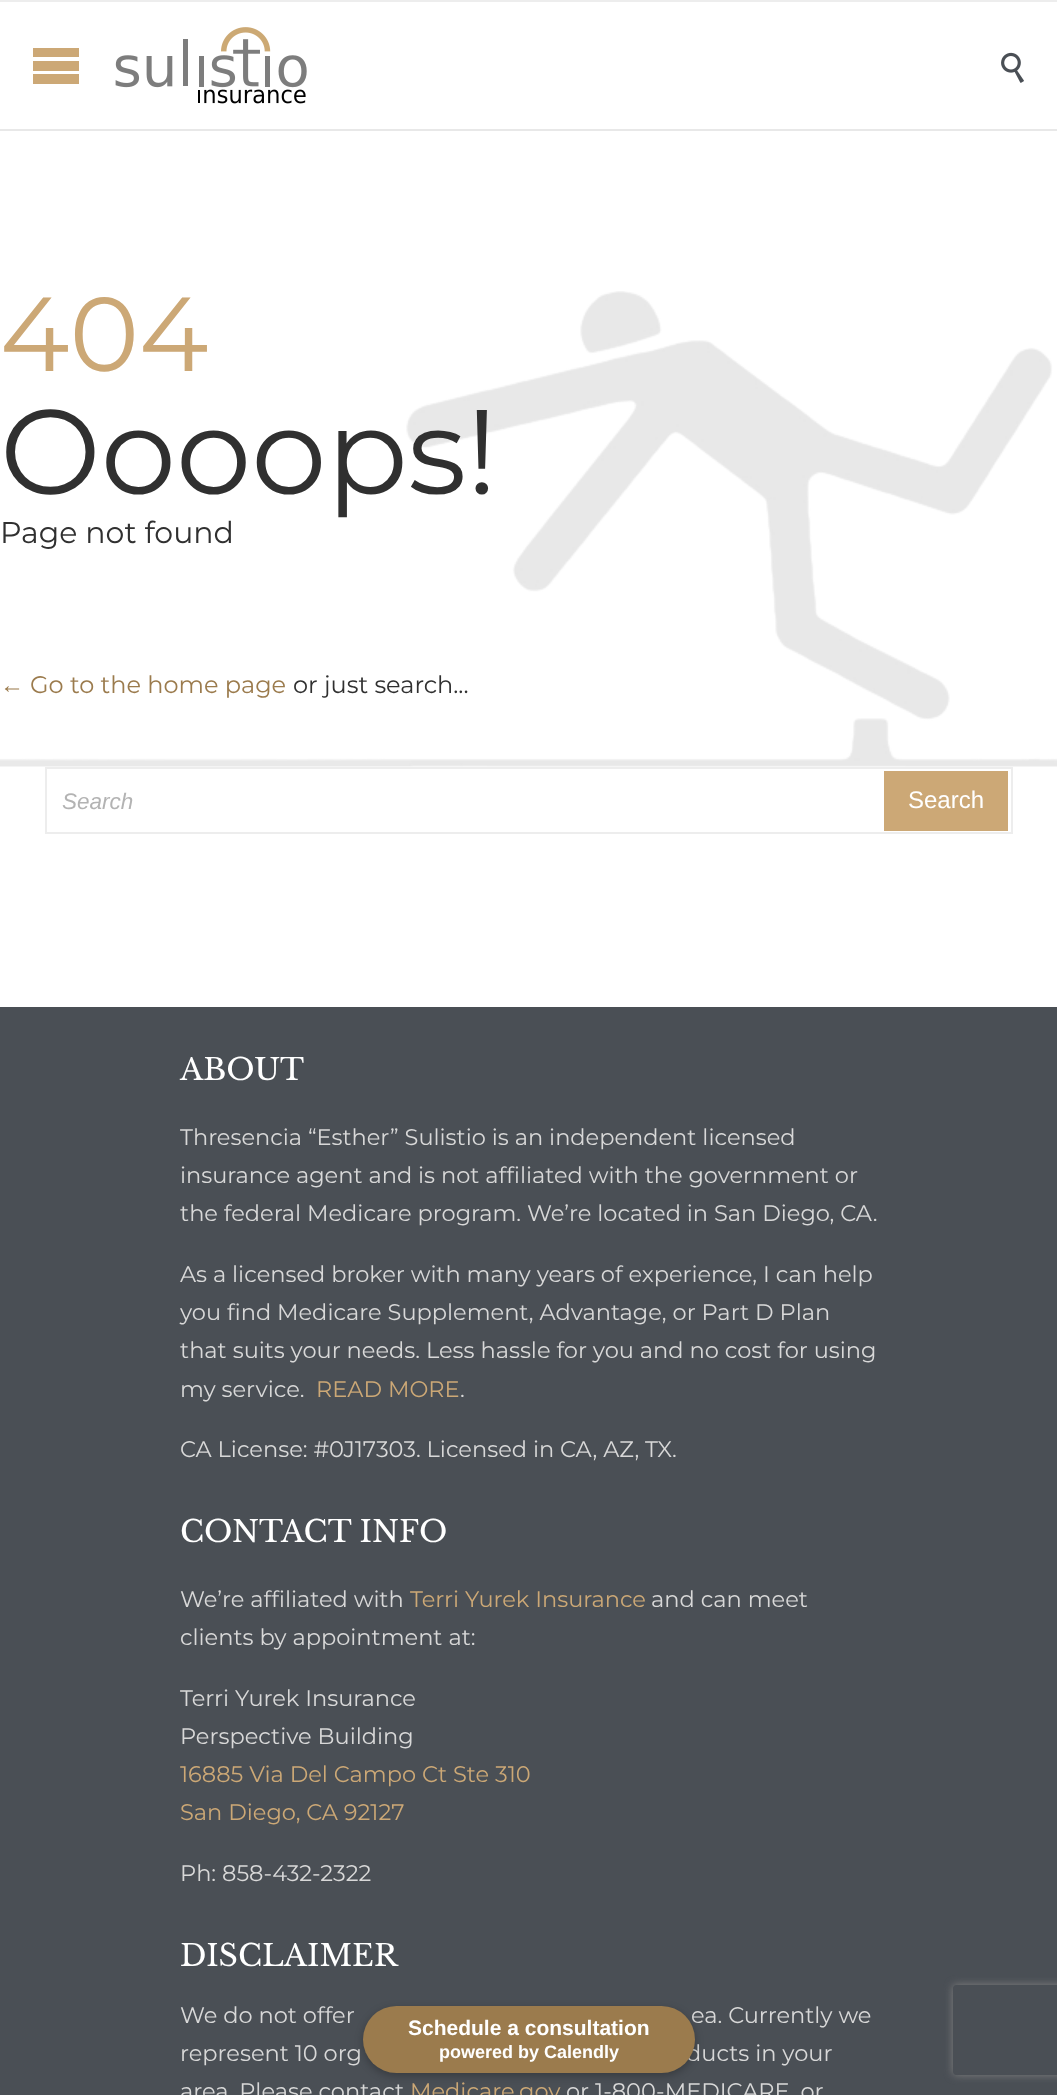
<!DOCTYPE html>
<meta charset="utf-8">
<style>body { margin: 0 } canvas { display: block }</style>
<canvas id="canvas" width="1057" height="2095"></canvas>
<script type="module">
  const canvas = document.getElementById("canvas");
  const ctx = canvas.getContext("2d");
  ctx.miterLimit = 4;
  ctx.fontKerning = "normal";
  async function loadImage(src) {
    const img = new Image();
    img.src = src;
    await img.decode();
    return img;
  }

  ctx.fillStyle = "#4a4f55";
  ctx.fillRect(0, 0, 1057, 2095);
  ctx.fillStyle = "#ffffff";
  ctx.fillRect(0, 2, 1057, 127);
  ctx.fillStyle = "#cca876";
  ctx.beginPath();
  ctx.moveTo(33, 48);
  ctx.lineTo(79, 48);
  ctx.lineTo(79, 57);
  ctx.lineTo(33, 57);
  ctx.closePath();
  ctx.moveTo(33, 61);
  ctx.lineTo(79, 61);
  ctx.lineTo(79, 71);
  ctx.lineTo(33, 71);
  ctx.closePath();
  ctx.moveTo(33, 74);
  ctx.lineTo(79, 74);
  ctx.lineTo(79, 84);
  ctx.lineTo(33, 84);
  ctx.closePath();
  ctx.fill();
  ctx.fillStyle = "#e8e8e8";
  ctx.fillRect(0, 129, 1057, 2);
  ctx.fillStyle = "#ededed";
  ctx.fillRect(0, 0, 1057, 2);
  ctx.drawImage(await loadImage("img1.png"), 115, 27, 192, 77);
  ctx.drawImage(await loadImage("img2.png"), 1001, 52, 23, 31);
  ctx.fillStyle = "#ffffff";
  ctx.fillRect(0, 131, 1057, 876);
  ctx.drawImage(await loadImage("img3.png"), 0, 291, 1057, 476);
  ctx.font = "105px Montserrat";
  ctx.fillStyle = "#cca876";
  ctx.fillText("404", 0, 371);
  ctx.font = "120px Montserrat";
  ctx.fillStyle = "#303030";
  ctx.fillText("Oooops!", 0, 494);
  ctx.font = "30px Montserrat";
  ctx.fillText("Page not found", 0, 543);
  ctx.font = "24px Liberation Serif";
  ctx.fillStyle = "#9b7b4d";
  ctx.fillText("←", 0, 693);
  ctx.font = "24px Montserrat";
  ctx.fillText("Go to the home page", 30, 693);
  ctx.fillStyle = "#303030";
  ctx.fillText("or just search...", 293, 693);
  ctx.strokeStyle = "#ededed";
  ctx.lineWidth = 2;
  ctx.strokeRect(46, 768, 966, 65);
  ctx.font = "italic 22.5px Liberation Sans";
  ctx.fillStyle = "#b3b3b3";
  ctx.fillText("Search", 62, 809);
  ctx.fillStyle = "#cca876";
  ctx.fillRect(884, 771, 124, 60);
  ctx.font = "24px Liberation Sans";
  ctx.fillStyle = "#ffffff";
  ctx.fillText("Search", 908, 808);
  ctx.font = "30px Libre Baskerville";
  ctx.fillText("ABOUT", 180, 1080);
  ctx.font = "22.5px Montserrat";
  ctx.fillStyle = "#d8d8d8";
  ctx.fillText("Thresencia “Esther” Sulistio is an independent licensed", 180, 1145);
  ctx.fillText("insurance agent and is not affiliated with the government or", 180, 1183);
  ctx.fillText("the federal Medicare program. We’re located in San Diego, CA.", 180, 1221);
  ctx.fillText("As a licensed broker with many years of experience, I can help", 180, 1282);
  ctx.fillText("you find Medicare Supplement, Advantage, or Part D Plan", 180, 1320);
  ctx.fillText("that suits your needs. Less hassle for you and no cost for using", 180, 1358);
  ctx.fillText("my service.", 180, 1397);
  ctx.fillStyle = "#cca876";
  ctx.fillText("READ MORE", 316, 1397);
  ctx.fillStyle = "#d8d8d8";
  ctx.fillText(".", 460, 1397);
  ctx.fillText("CA License: #0J17303. Licensed in CA, AZ, TX.", 180, 1457);
  ctx.font = "30px Libre Baskerville";
  ctx.fillStyle = "#ffffff";
  ctx.fillText("CONTACT INFO", 180, 1542);
  ctx.font = "22.5px Montserrat";
  ctx.fillStyle = "#d8d8d8";
  ctx.fillText("We’re affiliated with", 180, 1607);
  ctx.fillStyle = "#cca876";
  ctx.fillText("Terri Yurek Insurance", 410, 1607);
  ctx.fillStyle = "#d8d8d8";
  ctx.fillText("and can meet", 651, 1607);
  ctx.fillText("clients by appointment at:", 180, 1645);
  ctx.fillText("Terri Yurek Insurance", 180, 1706);
  ctx.fillText("Perspective Building", 180, 1744);
  ctx.fillStyle = "#cca876";
  ctx.fillText("16885 Via Del Campo Ct Ste 310", 180, 1782);
  ctx.fillText("San Diego, CA 92127", 180, 1820);
  ctx.fillStyle = "#d8d8d8";
  ctx.fillText("Ph: 858-432-2322", 180, 1881);
  ctx.font = "30px Libre Baskerville";
  ctx.fillStyle = "#ffffff";
  ctx.fillText("DISCLAIMER", 180, 1966);
  ctx.font = "22.5px Montserrat";
  ctx.fillStyle = "#d8d8d8";
  ctx.fillText("We do not offer", 180, 2023);
  ctx.fillText("ea. Currently we", 691, 2023);
  ctx.fillText("represent 10 org", 180, 2061);
  ctx.fillText("ducts in your", 686, 2061);
  ctx.fillText("area. Please contact", 180, 2099);
  ctx.fillStyle = "#cca876";
  ctx.fillText("Medicare.gov", 410, 2099);
  ctx.fillStyle = "#d8d8d8";
  ctx.fillText("or 1-800-MEDICARE, or", 566, 2099);
  ctx.save();
  ctx.beginPath();
  ctx.moveTo(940, 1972);
  ctx.lineTo(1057, 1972);
  ctx.lineTo(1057, 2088);
  ctx.lineTo(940, 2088);
  ctx.closePath();
  ctx.moveTo(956, 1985);
  ctx.lineTo(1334, 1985);
  ctx.bezierCurveTo(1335.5, 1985, 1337, 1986.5, 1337, 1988);
  ctx.lineTo(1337, 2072);
  ctx.bezierCurveTo(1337, 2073.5, 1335.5, 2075, 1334, 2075);
  ctx.lineTo(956, 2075);
  ctx.bezierCurveTo(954.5, 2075, 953, 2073.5, 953, 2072);
  ctx.lineTo(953, 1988);
  ctx.bezierCurveTo(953, 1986.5, 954.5, 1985, 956, 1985);
  ctx.closePath();
  ctx.clip("evenodd");
  ctx.fillStyle = "#808080";
  ctx.filter = "blur(4px)";
  ctx.beginPath();
  ctx.roundRect(953, 1985, 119, 90, 3);
  ctx.fill();
  ctx.filter = "none";
  ctx.restore();
  ctx.fillStyle = "rgba(0, 0, 0, 0.25)";
  ctx.filter = "blur(4px)";
  ctx.beginPath();
  ctx.roundRect(363, 2009, 332, 67, 33.5);
  ctx.fill();
  ctx.filter = "none";
  ctx.fillStyle = "#9b7b4d";
  ctx.beginPath();
  ctx.roundRect(363, 2006, 332, 67, 33.5);
  ctx.fill();
  ctx.font = "bold 21px Liberation Sans";
  ctx.fillStyle = "#ffffff";
  ctx.fillText("Schedule a consultation", 408, 2035);
  ctx.font = "bold 18px Liberation Sans";
  ctx.fillText("powered by Calendly", 439, 2058);
</script>
